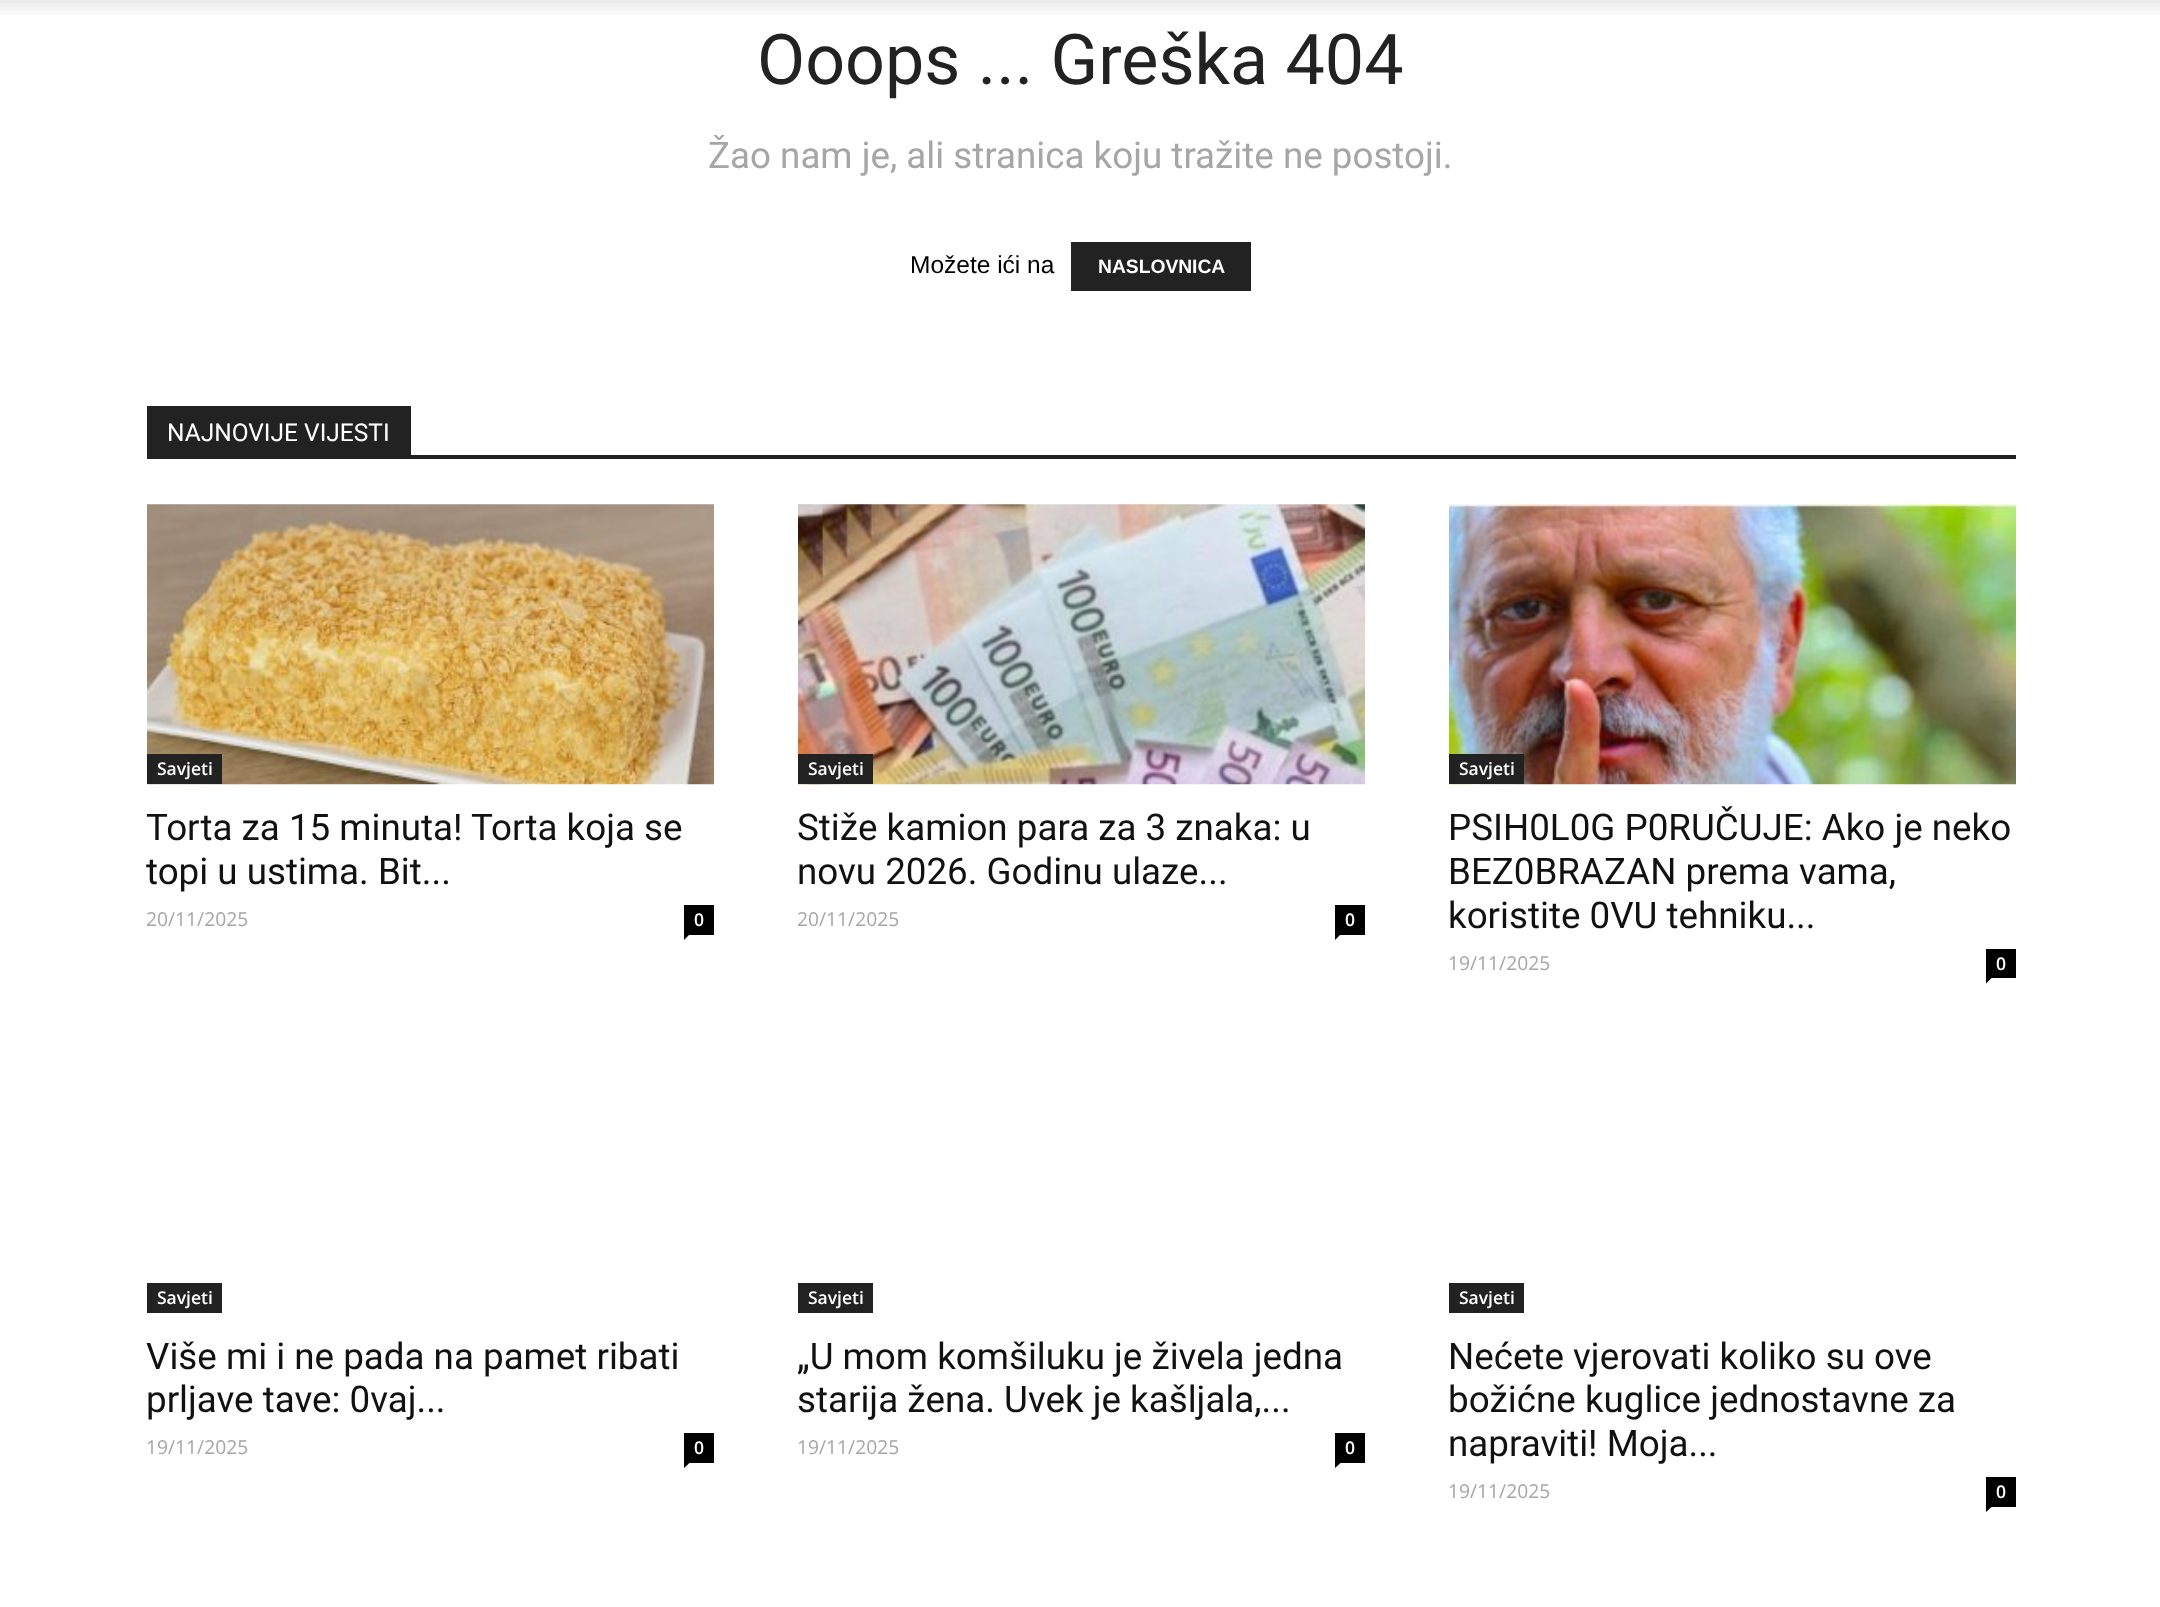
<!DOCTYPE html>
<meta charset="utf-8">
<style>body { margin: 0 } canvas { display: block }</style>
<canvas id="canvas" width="2160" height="1607"></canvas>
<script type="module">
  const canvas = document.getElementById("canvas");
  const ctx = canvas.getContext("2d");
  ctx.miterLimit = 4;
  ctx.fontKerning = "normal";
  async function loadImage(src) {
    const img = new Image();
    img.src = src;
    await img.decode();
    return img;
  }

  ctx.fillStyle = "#ffffff";
  ctx.fillRect(0, 0, 2160, 1607);
  ctx.drawImage(await loadImage("img1.png"), 0, 0, 2160, 15);
  ctx.font = "70px Roboto";
  ctx.fillStyle = "#222222";
  ctx.fillText("Ooops ... Greška 404", 757, 84);
  ctx.font = "36.75px Roboto";
  ctx.fillStyle = "#a6a6a6";
  ctx.fillText("Žao nam je, ali stranica koju tražite ne postoji.", 708, 168);
  ctx.font = "24.5px Liberation Sans";
  ctx.fillStyle = "#000000";
  ctx.fillText("Možete ići na", 910, 273);
  ctx.fillStyle = "#222222";
  ctx.fillRect(1071, 242, 180, 49);
  ctx.font = "bold 19.25px Liberation Sans";
  ctx.fillStyle = "#ffffff";
  ctx.fillText("NASLOVNICA", 1098, 273);
  ctx.fillStyle = "#222222";
  ctx.fillRect(147, 455, 1869, 4);
  ctx.fillRect(147, 406, 264, 49);
  ctx.font = "24.5px Roboto";
  ctx.fillStyle = "#ffffff";
  ctx.fillText("NAJNOVIJE VIJESTI", 167, 441);
  ctx.drawImage(await loadImage("img2.png"), 147, 504, 567, 281);
  ctx.fillStyle = "#222222";
  ctx.fillRect(147, 754, 75, 30);
  ctx.font = "600 17.5px Open Sans";
  ctx.fillStyle = "#ffffff";
  ctx.fillText("Savjeti", 157, 775);
  ctx.font = "36.75px Roboto";
  ctx.fillStyle = "#111111";
  ctx.fillText("Torta za 15 minuta! Torta koja se", 146, 840);
  ctx.fillText("topi u ustima. Bit...", 146, 884);
  ctx.font = "19.25px Open Sans";
  ctx.fillStyle = "#a6a6a6";
  ctx.fillText("20/11/2025", 146, 926);
  ctx.fillStyle = "#000000";
  ctx.fillRect(684, 905, 30, 30);
  ctx.font = "600 17.5px Open Sans";
  ctx.fillStyle = "#ffffff";
  ctx.fillText("0", 694, 926);
  ctx.fillStyle = "#000000";
  ctx.beginPath();
  ctx.moveTo(684, 934.5);
  ctx.lineTo(689.5, 934.5);
  ctx.lineTo(684, 940);
  ctx.closePath();
  ctx.fill();
  ctx.drawImage(await loadImage("img3.png"), 798, 504, 567, 281);
  ctx.fillStyle = "#222222";
  ctx.fillRect(798, 754, 75, 30);
  ctx.fillStyle = "#ffffff";
  ctx.fillText("Savjeti", 808, 775);
  ctx.font = "36.75px Roboto";
  ctx.fillStyle = "#111111";
  ctx.fillText("Stiže kamion para za 3 znaka: u", 797, 840);
  ctx.fillText("novu 2026. Godinu ulaze...", 797, 884);
  ctx.font = "19.25px Open Sans";
  ctx.fillStyle = "#a6a6a6";
  ctx.fillText("20/11/2025", 797, 926);
  ctx.fillStyle = "#000000";
  ctx.fillRect(1335, 905, 30, 30);
  ctx.font = "600 17.5px Open Sans";
  ctx.fillStyle = "#ffffff";
  ctx.fillText("0", 1345, 926);
  ctx.fillStyle = "#000000";
  ctx.beginPath();
  ctx.moveTo(1335, 934.5);
  ctx.lineTo(1340.5, 934.5);
  ctx.lineTo(1335, 940);
  ctx.closePath();
  ctx.fill();
  ctx.drawImage(await loadImage("img4.png"), 1449, 504, 567, 281);
  ctx.fillStyle = "#222222";
  ctx.fillRect(1449, 754, 75, 30);
  ctx.fillStyle = "#ffffff";
  ctx.fillText("Savjeti", 1459, 775);
  ctx.font = "36.75px Roboto";
  ctx.fillStyle = "#111111";
  ctx.fillText("PSIH0L0G P0RUČUJE: Ako je neko", 1448, 840);
  ctx.fillText("BEZ0BRAZAN prema vama,", 1448, 884);
  ctx.fillText("koristite 0VU tehniku...", 1448, 928);
  ctx.font = "19.25px Open Sans";
  ctx.fillStyle = "#a6a6a6";
  ctx.fillText("19/11/2025", 1448, 970);
  ctx.fillStyle = "#000000";
  ctx.fillRect(1986, 949, 30, 29);
  ctx.font = "600 17.5px Open Sans";
  ctx.fillStyle = "#ffffff";
  ctx.fillText("0", 1996, 970);
  ctx.fillStyle = "#000000";
  ctx.beginPath();
  ctx.moveTo(1986, 978);
  ctx.lineTo(1991.5, 978);
  ctx.lineTo(1986, 983.5);
  ctx.closePath();
  ctx.fill();
  ctx.fillStyle = "#222222";
  ctx.fillRect(147, 1283, 75, 30);
  ctx.fillStyle = "#ffffff";
  ctx.fillText("Savjeti", 157, 1304);
  ctx.font = "36.75px Roboto";
  ctx.fillStyle = "#111111";
  ctx.fillText("Više mi i ne pada na pamet ribati", 146, 1369);
  ctx.fillText("prljave tave: 0vaj...", 146, 1412);
  ctx.font = "19.25px Open Sans";
  ctx.fillStyle = "#a6a6a6";
  ctx.fillText("19/11/2025", 146, 1454);
  ctx.fillStyle = "#000000";
  ctx.fillRect(684, 1433, 30, 30);
  ctx.font = "600 17.5px Open Sans";
  ctx.fillStyle = "#ffffff";
  ctx.fillText("0", 694, 1454);
  ctx.fillStyle = "#000000";
  ctx.beginPath();
  ctx.moveTo(684, 1463);
  ctx.lineTo(689.5, 1463);
  ctx.lineTo(684, 1468);
  ctx.closePath();
  ctx.fill();
  ctx.fillStyle = "#222222";
  ctx.fillRect(798, 1283, 75, 30);
  ctx.fillStyle = "#ffffff";
  ctx.fillText("Savjeti", 808, 1304);
  ctx.font = "36.75px Roboto";
  ctx.fillStyle = "#111111";
  ctx.fillText("„U mom komšiluku je živela jedna", 797, 1369);
  ctx.fillText("starija žena. Uvek je kašljala,...", 797, 1412);
  ctx.font = "19.25px Open Sans";
  ctx.fillStyle = "#a6a6a6";
  ctx.fillText("19/11/2025", 797, 1454);
  ctx.fillStyle = "#000000";
  ctx.fillRect(1335, 1433, 30, 30);
  ctx.font = "600 17.5px Open Sans";
  ctx.fillStyle = "#ffffff";
  ctx.fillText("0", 1345, 1454);
  ctx.fillStyle = "#000000";
  ctx.beginPath();
  ctx.moveTo(1335, 1463);
  ctx.lineTo(1340.5, 1463);
  ctx.lineTo(1335, 1468);
  ctx.closePath();
  ctx.fill();
  ctx.fillStyle = "#222222";
  ctx.fillRect(1449, 1283, 75, 30);
  ctx.fillStyle = "#ffffff";
  ctx.fillText("Savjeti", 1459, 1304);
  ctx.font = "36.75px Roboto";
  ctx.fillStyle = "#111111";
  ctx.fillText("Nećete vjerovati koliko su ove", 1448, 1369);
  ctx.fillText("božićne kuglice jednostavne za", 1448, 1412);
  ctx.fillText("napraviti! Moja...", 1448, 1456);
  ctx.font = "19.25px Open Sans";
  ctx.fillStyle = "#a6a6a6";
  ctx.fillText("19/11/2025", 1448, 1498);
  ctx.fillStyle = "#000000";
  ctx.fillRect(1986, 1477, 30, 30);
  ctx.font = "600 17.5px Open Sans";
  ctx.fillStyle = "#ffffff";
  ctx.fillText("0", 1996, 1498);
  ctx.fillStyle = "#000000";
  ctx.beginPath();
  ctx.moveTo(1986, 1507);
  ctx.lineTo(1991.5, 1507);
  ctx.lineTo(1986, 1512);
  ctx.closePath();
  ctx.fill();
</script>
